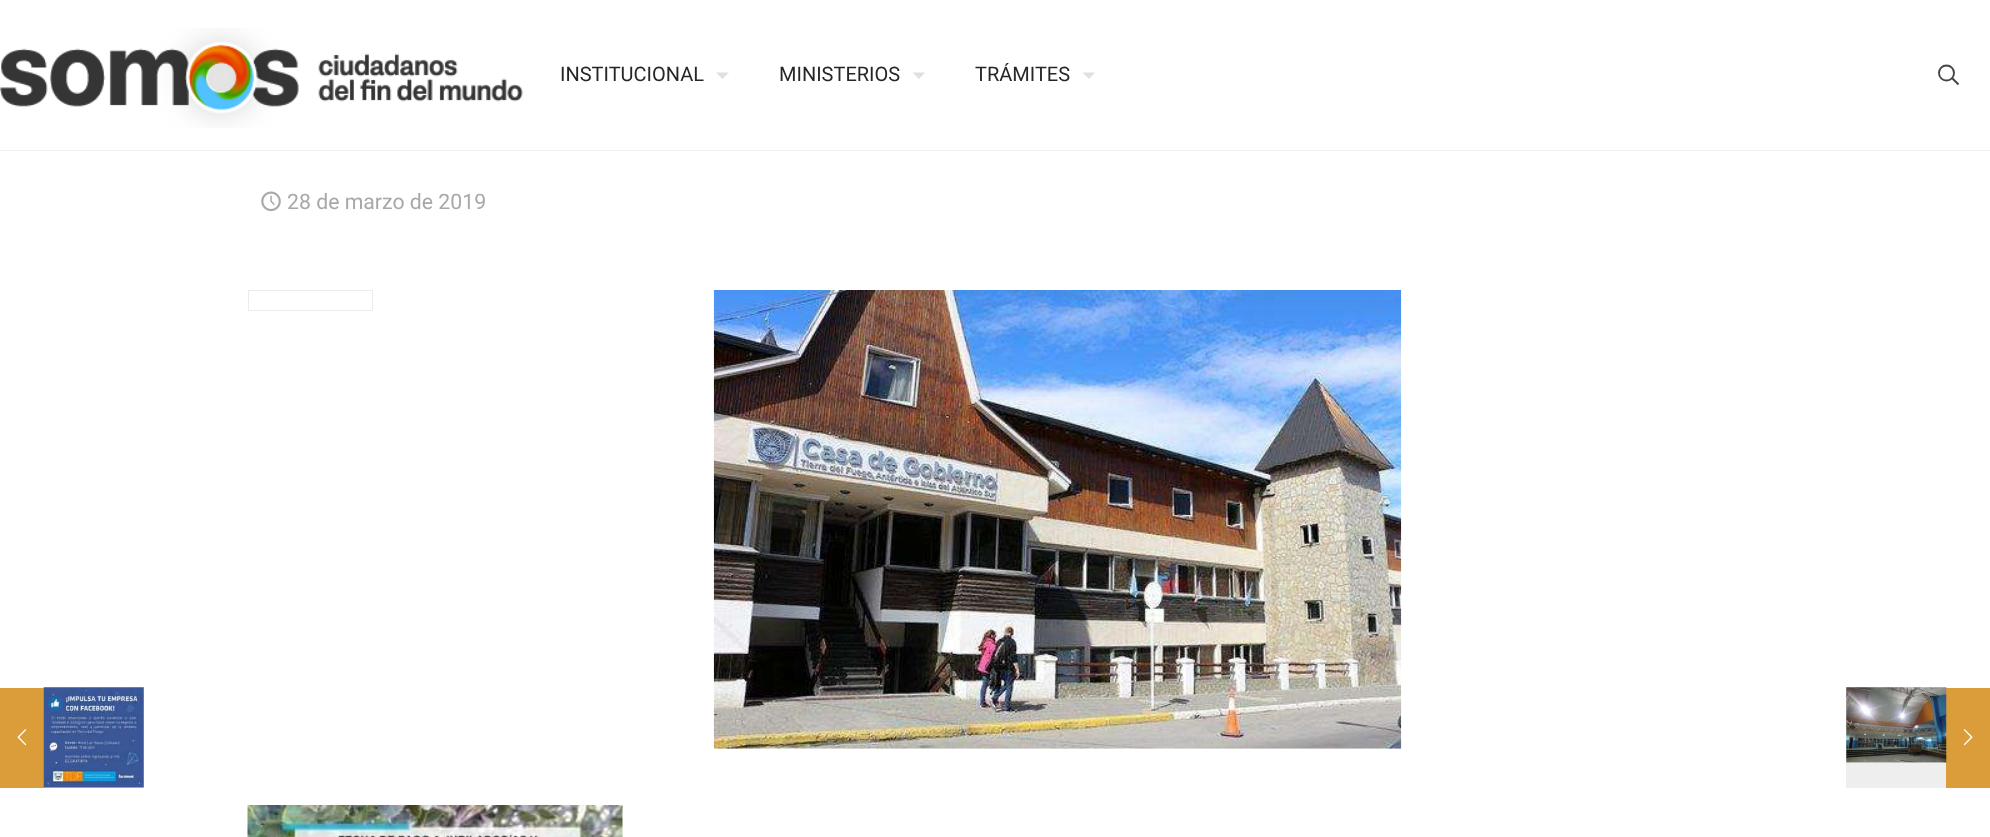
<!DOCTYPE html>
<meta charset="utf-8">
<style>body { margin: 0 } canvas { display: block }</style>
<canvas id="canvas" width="1990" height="837"></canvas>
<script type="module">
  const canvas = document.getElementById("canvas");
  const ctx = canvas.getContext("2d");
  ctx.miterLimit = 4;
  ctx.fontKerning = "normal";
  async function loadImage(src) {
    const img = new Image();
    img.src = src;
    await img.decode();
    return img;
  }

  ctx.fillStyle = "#ffffff";
  ctx.fillRect(0, 0, 1990, 837);
  ctx.fillStyle = "#f2f2f2";
  ctx.fillRect(0, 150, 1990, 1);
  ctx.drawImage(await loadImage("img1.png"), 0, 28, 523, 100);
  ctx.font = "20px Roboto";
  ctx.fillStyle = "#262626";
  ctx.fillText("INSTITUCIONAL", 560, 81);
  ctx.fillStyle = "#e0e0e0";
  ctx.beginPath();
  ctx.moveTo(716, 72.5);
  ctx.lineTo(729, 72.5);
  ctx.lineTo(722.5, 79);
  ctx.closePath();
  ctx.fill();
  ctx.fillStyle = "#262626";
  ctx.fillText("MINISTERIOS", 779, 81);
  ctx.fillStyle = "#e0e0e0";
  ctx.beginPath();
  ctx.moveTo(912.5, 72.5);
  ctx.lineTo(925, 72.5);
  ctx.lineTo(919, 79);
  ctx.closePath();
  ctx.fill();
  ctx.fillStyle = "#262626";
  ctx.fillText("TRÁMITES", 975, 81);
  ctx.fillStyle = "#e0e0e0";
  ctx.beginPath();
  ctx.moveTo(1082.5, 72.5);
  ctx.lineTo(1095, 72.5);
  ctx.lineTo(1089, 79);
  ctx.closePath();
  ctx.fill();
  ctx.beginPath();
  ctx.arc(1946.5, 73, 7.5, 0, Math.PI * 2);
  ctx.strokeStyle = "#444444";
  ctx.lineWidth = 1.9;
  ctx.stroke();
  ctx.beginPath();
  ctx.moveTo(1952, 78);
  ctx.lineTo(1958.5, 84.5);
  ctx.stroke();
  ctx.drawImage(await loadImage("img2.png"), 261, 191, 20, 20);
  ctx.font = "21.25px Roboto";
  ctx.fillStyle = "#a8a8a8";
  ctx.fillText("28 de marzo de 2019", 287, 209);
  ctx.strokeStyle = "#ebebeb";
  ctx.lineWidth = 1;
  ctx.strokeRect(248.5, 290.5, 124, 20);
  ctx.drawImage(await loadImage("img3.png"), 713, 290, 689, 459);
  ctx.drawImage(await loadImage("img4.png"), 247, 805, 376, 32);
  ctx.fillStyle = "#db9d3a";
  ctx.fillRect(0, 688, 44, 100);
  ctx.drawImage(await loadImage("img5.png"), 17, 729, 10, 17);
  ctx.fillStyle = "#eeeeee";
  ctx.fillRect(44, 688, 100, 100);
  ctx.drawImage(await loadImage("img7.png"), 43, 687, 101, 1);
  ctx.drawImage(await loadImage("img6.png"), 43, 687, 101, 101);
  ctx.drawImage(await loadImage("img8.png"), 1846, 687, 101, 1);
  ctx.fillRect(1846, 688, 100, 100);
  ctx.fillStyle = "#db9d3a";
  ctx.fillRect(1946, 688, 44, 100);
  ctx.drawImage(await loadImage("img9.png"), 1846, 687, 101, 76);
  ctx.drawImage(await loadImage("img10.png"), 1963, 729, 10, 17);
</script>
